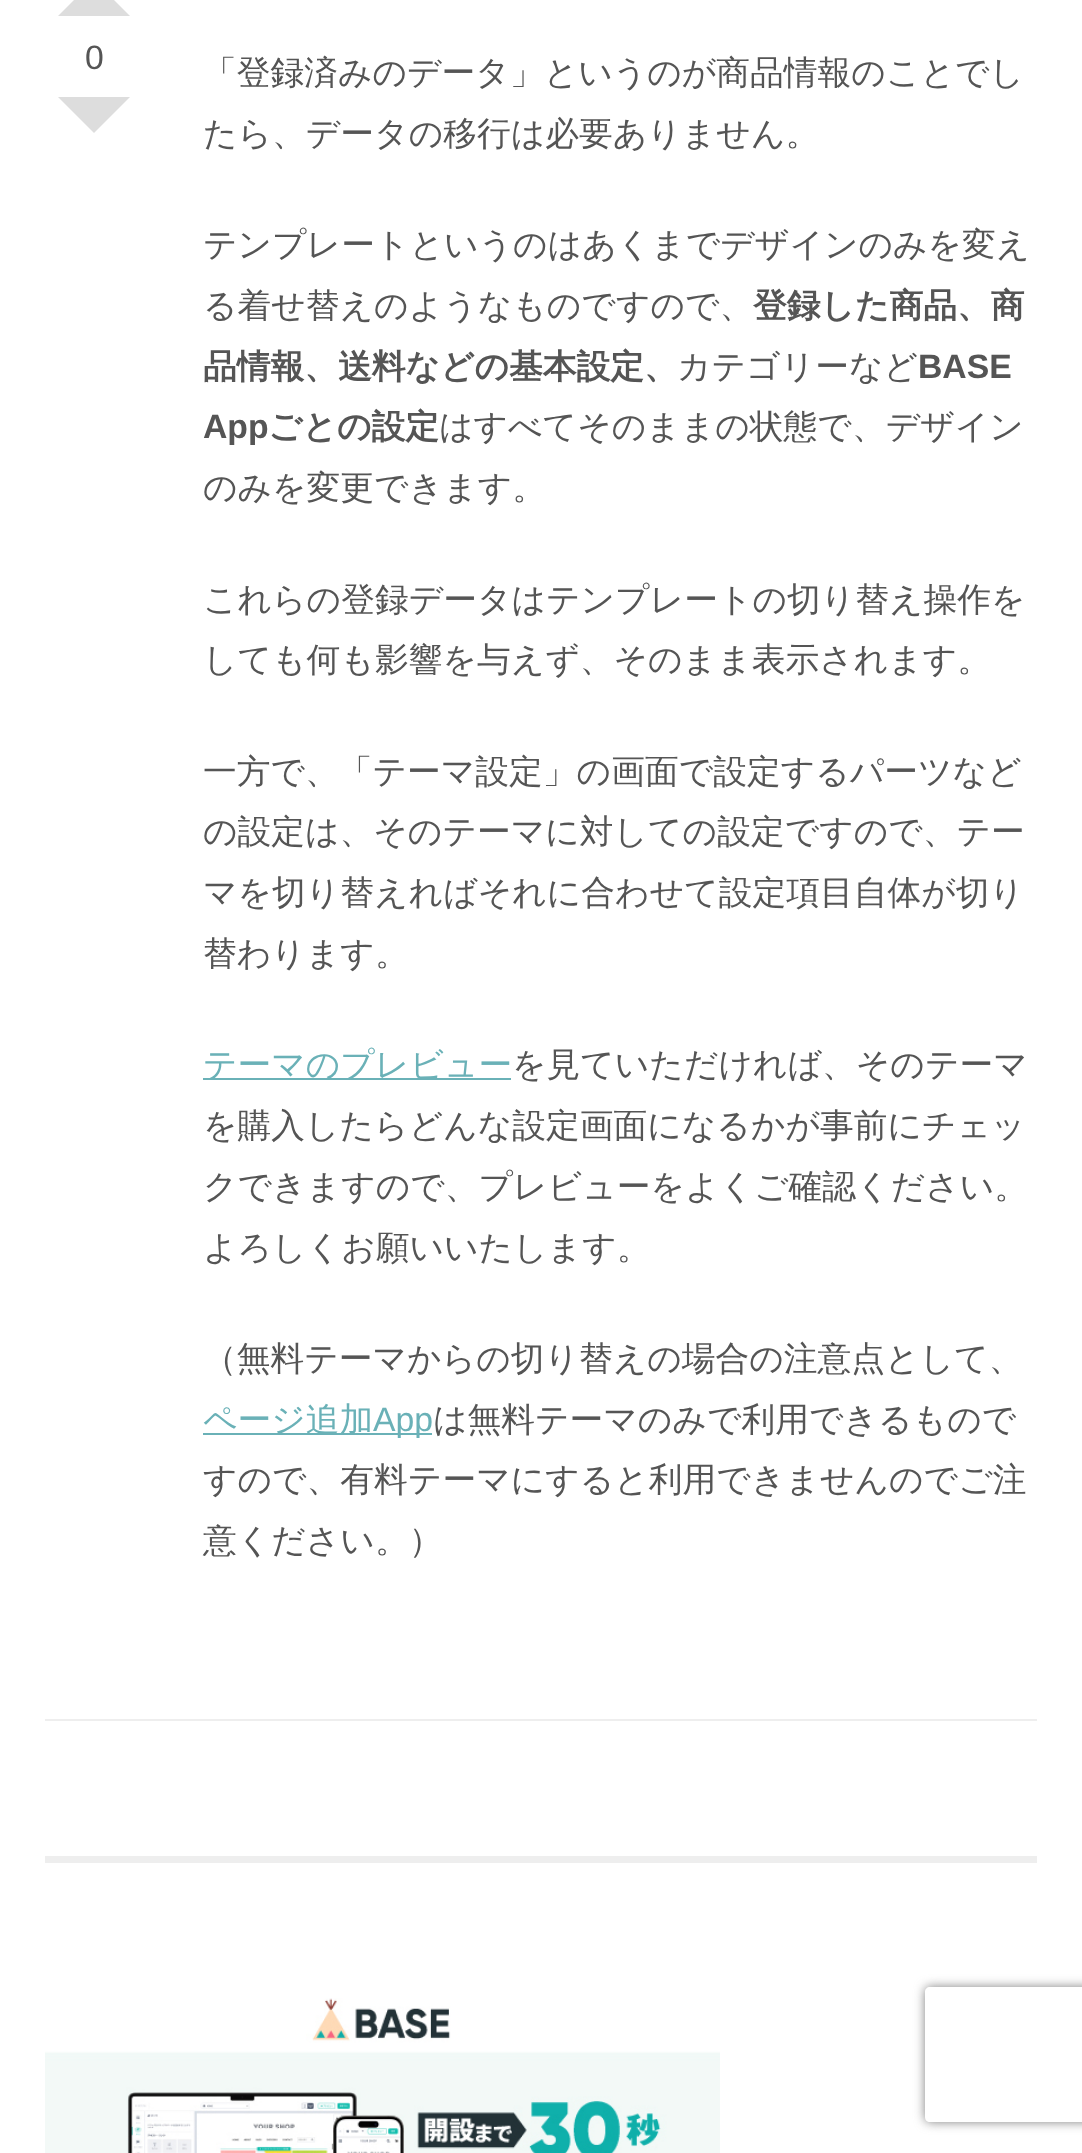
<!DOCTYPE html>
<meta charset="utf-8">
<style>body { margin: 0 } canvas { display: block }</style>
<canvas id="canvas" width="1082" height="2153"></canvas>
<script type="module">
  const canvas = document.getElementById("canvas");
  const ctx = canvas.getContext("2d");
  ctx.miterLimit = 4;
  ctx.fontKerning = "normal";
  async function loadImage(src) {
    const img = new Image();
    img.src = src;
    await img.decode();
    return img;
  }

  ctx.fillStyle = "#ffffff";
  ctx.fillRect(0, 0, 1082, 2153);
  ctx.fillStyle = "#eeeeee";
  ctx.fillRect(45, 1719, 992, 2);
  ctx.fillStyle = "#dddddd";
  ctx.beginPath();
  ctx.moveTo(130, 16);
  ctx.lineTo(58, 16);
  ctx.lineTo(94, -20);
  ctx.closePath();
  ctx.fill();
  ctx.font = "33.75px Liberation Sans";
  ctx.fillStyle = "#555555";
  ctx.fillText("0", 85, 69);
  ctx.fillStyle = "#dddddd";
  ctx.beginPath();
  ctx.moveTo(58, 97);
  ctx.lineTo(130, 97);
  ctx.lineTo(94, 133);
  ctx.closePath();
  ctx.fill();
  ctx.font = "500 33.75px WenQuanYi Zen Hei";
  ctx.fillStyle = "#555555";
  ctx.fillText("「登録済みのデータ」というのが商品情報のことでし", 203, 84);
  ctx.fillText("たら、データの移行は必要ありません。", 203, 145);
  ctx.fillText("テンプレートというのはあくまでデザインのみを変え", 203, 256);
  ctx.fillText("る着せ替えのようなものですので、", 203, 317);
  ctx.font = "bold 33.75px WenQuanYi Zen Hei";
  ctx.fillText("登録した商品、商", 753, 317);
  ctx.fillText("品情報、送料などの基本設定、", 203, 378);
  ctx.font = "500 33.75px WenQuanYi Zen Hei";
  ctx.fillText("カテゴリーなど", 677, 378);
  ctx.font = "bold 33.75px Liberation Sans";
  ctx.fillText("BASE", 918, 378);
  ctx.fillText("App", 203, 438);
  ctx.font = "bold 33.75px WenQuanYi Zen Hei";
  ctx.fillText("ごとの設定", 268, 438);
  ctx.font = "500 33.75px WenQuanYi Zen Hei";
  ctx.fillText("はすべてそのままの状態で、デザイン", 439, 438);
  ctx.fillText("のみを変更できます。", 203, 499);
  ctx.fillText("これらの登録データはテンプレートの切り替え操作を", 203, 611);
  ctx.fillText("しても何も影響を与えず、そのまま表示されます。", 203, 671);
  ctx.fillText("一方で、「テーマ設定」の画面で設定するパーツなど", 203, 783);
  ctx.fillText("の設定は、そのテーマに対しての設定ですので、テー", 203, 843);
  ctx.fillText("マを切り替えればそれに合わせて設定項目自体が切り", 203, 904);
  ctx.fillText("替わります。", 203, 965);
  ctx.fillStyle = "#6ab1b7";
  ctx.fillRect(203, 1078, 308, 2);
  ctx.fillText("テーマのプレビュー", 203, 1076);
  ctx.fillStyle = "#555555";
  ctx.fillText("を見ていただければ、そのテーマ", 512, 1076);
  ctx.fillText("を購入したらどんな設定画面になるかが事前にチェッ", 203, 1137);
  ctx.fillText("クできますので、プレビューをよくご確認ください。", 203, 1198);
  ctx.fillText("よろしくお願いいたします。", 203, 1259);
  ctx.fillText("（無料テーマからの切り替えの場合の注意点として、", 203, 1370);
  ctx.fillStyle = "#6ab1b7";
  ctx.fillRect(203, 1433, 229, 2);
  ctx.fillText("ページ追加", 203, 1431);
  ctx.font = "33.75px Liberation Sans";
  ctx.fillText("App", 373, 1431);
  ctx.font = "500 33.75px WenQuanYi Zen Hei";
  ctx.fillStyle = "#555555";
  ctx.fillText("は無料テーマのみで利用できるもので", 433, 1431);
  ctx.fillText("すので、有料テーマにすると利用できませんのでご注", 203, 1491);
  ctx.fillText("意ください。）", 203, 1552);
  ctx.fillStyle = "#eeeeee";
  ctx.fillRect(45, 1856, 992, 7);
  ctx.drawImage(await loadImage("img1.png"), 45, 1998, 675, 155);
  ctx.save();
  ctx.beginPath();
  ctx.moveTo(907, 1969);
  ctx.lineTo(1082, 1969);
  ctx.lineTo(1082, 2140);
  ctx.lineTo(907, 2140);
  ctx.closePath();
  ctx.moveTo(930, 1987);
  ctx.lineTo(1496, 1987);
  ctx.bezierCurveTo(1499, 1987, 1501, 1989, 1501, 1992);
  ctx.lineTo(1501, 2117);
  ctx.bezierCurveTo(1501, 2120, 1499, 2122, 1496, 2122);
  ctx.lineTo(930, 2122);
  ctx.bezierCurveTo(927, 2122, 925, 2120, 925, 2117);
  ctx.lineTo(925, 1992);
  ctx.bezierCurveTo(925, 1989, 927, 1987, 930, 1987);
  ctx.closePath();
  ctx.clip("evenodd");
  ctx.fillStyle = "#808080";
  ctx.filter = "blur(5.5px)";
  ctx.beginPath();
  ctx.roundRect(925, 1987, 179, 135, 5);
  ctx.fill();
  ctx.filter = "none";
  ctx.restore();
</script>
